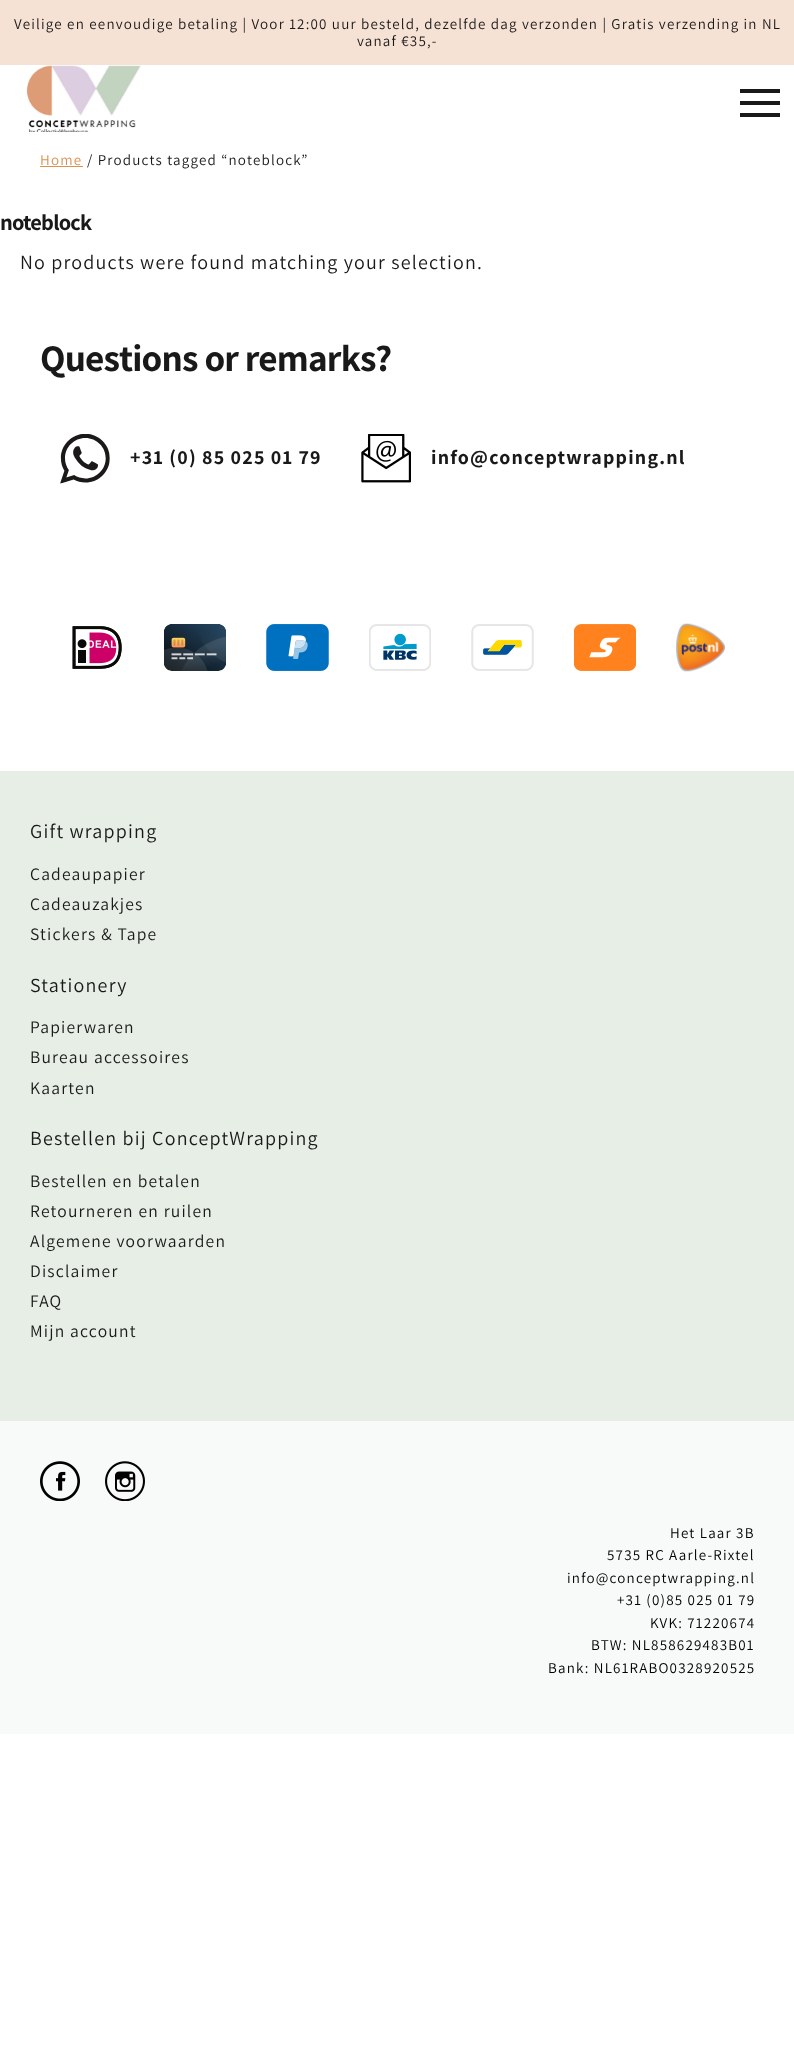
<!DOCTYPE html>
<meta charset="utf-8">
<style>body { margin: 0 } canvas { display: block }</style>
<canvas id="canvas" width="794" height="2058"></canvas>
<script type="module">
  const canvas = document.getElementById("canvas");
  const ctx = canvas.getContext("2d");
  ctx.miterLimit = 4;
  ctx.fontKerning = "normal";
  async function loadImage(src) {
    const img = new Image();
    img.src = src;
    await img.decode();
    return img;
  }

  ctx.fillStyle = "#ffffff";
  ctx.fillRect(0, 0, 794, 2058);
  ctx.fillStyle = "#f6e2d4";
  ctx.fillRect(0, 0, 794, 65);
  ctx.letterSpacing = "1.2px";
  ctx.font = "15px Assistant";
  ctx.fillStyle = "#1a1919";
  ctx.fillText("Veilige en eenvoudige betaling | Voor 12:00 uur besteld, dezelfde dag verzonden | Gratis verzending in NL", 14, 29);
  ctx.fillText("vanaf €35,-", 357, 46);
  ctx.drawImage(await loadImage("img1.png"), 26, 65, 115, 67);
  ctx.fillRect(740, 89, 40, 4);
  ctx.fillRect(740, 101, 40, 4);
  ctx.fillRect(740, 113, 40, 4);
  ctx.fillStyle = "#da9250";
  ctx.fillText("Home", 40, 165);
  ctx.fillRect(40, 166, 43, 1);
  ctx.fillStyle = "#1a1919";
  ctx.fillText("/ Products tagged “noteblock”", 87, 165);
  ctx.letterSpacing = "-0.8px";
  ctx.font = "bold 22.5px Assistant";
  ctx.fillText("noteblock", 0, 230);
  ctx.letterSpacing = "1.2px";
  ctx.font = "20px Assistant";
  ctx.fillText("No products were found matching your selection.", 20, 269);
  ctx.letterSpacing = "-0.8px";
  ctx.font = "bold 37.5px Assistant";
  ctx.fillText("Questions or remarks?", 40, 371);
  ctx.drawImage(await loadImage("img2.png"), 60, 434, 50, 50);
  ctx.letterSpacing = "1.2px";
  ctx.font = "bold 20px Assistant";
  ctx.fillText("+31 (0) 85 025 01 79", 130, 464);
  ctx.drawImage(await loadImage("img3.png"), 361, 434, 50, 49);
  ctx.fillText("info@conceptwrapping.nl", 431, 464);
  ctx.drawImage(await loadImage("img4.png"), 72, 626, 50, 43);
  ctx.drawImage(await loadImage("img5.png"), 164, 624, 62, 47);
  ctx.drawImage(await loadImage("img6.png"), 266, 624, 63, 47);
  ctx.drawImage(await loadImage("img7.png"), 369, 624, 62, 47);
  ctx.drawImage(await loadImage("img8.png"), 471, 624, 63, 47);
  ctx.drawImage(await loadImage("img9.png"), 574, 624, 62, 47);
  ctx.drawImage(await loadImage("img10.png"), 676, 623, 49, 49);
  ctx.fillStyle = "#e6eee6";
  ctx.fillRect(0, 771, 794, 650);
  ctx.font = "20px Assistant";
  ctx.fillStyle = "#1a1919";
  ctx.fillText("Gift wrapping", 30, 838);
  ctx.font = "17.5px Assistant";
  ctx.fillText("Cadeaupapier", 30, 880);
  ctx.fillText("Cadeauzakjes", 30, 910);
  ctx.fillText("Stickers & Tape", 30, 940);
  ctx.font = "20px Assistant";
  ctx.fillText("Stationery", 30, 992);
  ctx.font = "17.5px Assistant";
  ctx.fillText("Papierwaren", 30, 1033);
  ctx.fillText("Bureau accessoires", 30, 1063);
  ctx.fillText("Kaarten", 30, 1094);
  ctx.font = "20px Assistant";
  ctx.fillText("Bestellen bij ConceptWrapping", 30, 1145);
  ctx.font = "17.5px Assistant";
  ctx.fillText("Bestellen en betalen", 30, 1187);
  ctx.fillText("Retourneren en ruilen", 30, 1217);
  ctx.fillText("Algemene voorwaarden", 30, 1247);
  ctx.fillText("Disclaimer", 30, 1277);
  ctx.fillText("FAQ", 30, 1307);
  ctx.fillText("Mijn account", 30, 1337);
  ctx.fillStyle = "#f8faf9";
  ctx.fillRect(0, 1421, 794, 313);
  ctx.drawImage(await loadImage("img11.png"), 40, 1461, 40, 40);
  ctx.drawImage(await loadImage("img12.png"), 105, 1461, 40, 40);
  ctx.font = "15px Assistant";
  ctx.fillStyle = "#000000";
  ctx.fillText("Het Laar 3B", 670, 1538);
  ctx.fillText("5735 RC Aarle-Rixtel", 607, 1560);
  ctx.fillText("info@conceptwrapping.nl", 567, 1583);
  ctx.fillText("+31 (0)85 025 01 79", 617, 1605);
  ctx.fillText("KVK: 71220674", 650, 1628);
  ctx.fillText("BTW: NL858629483B01", 591, 1650);
  ctx.fillText("Bank: NL61RABO0328920525", 548, 1673);
</script>
